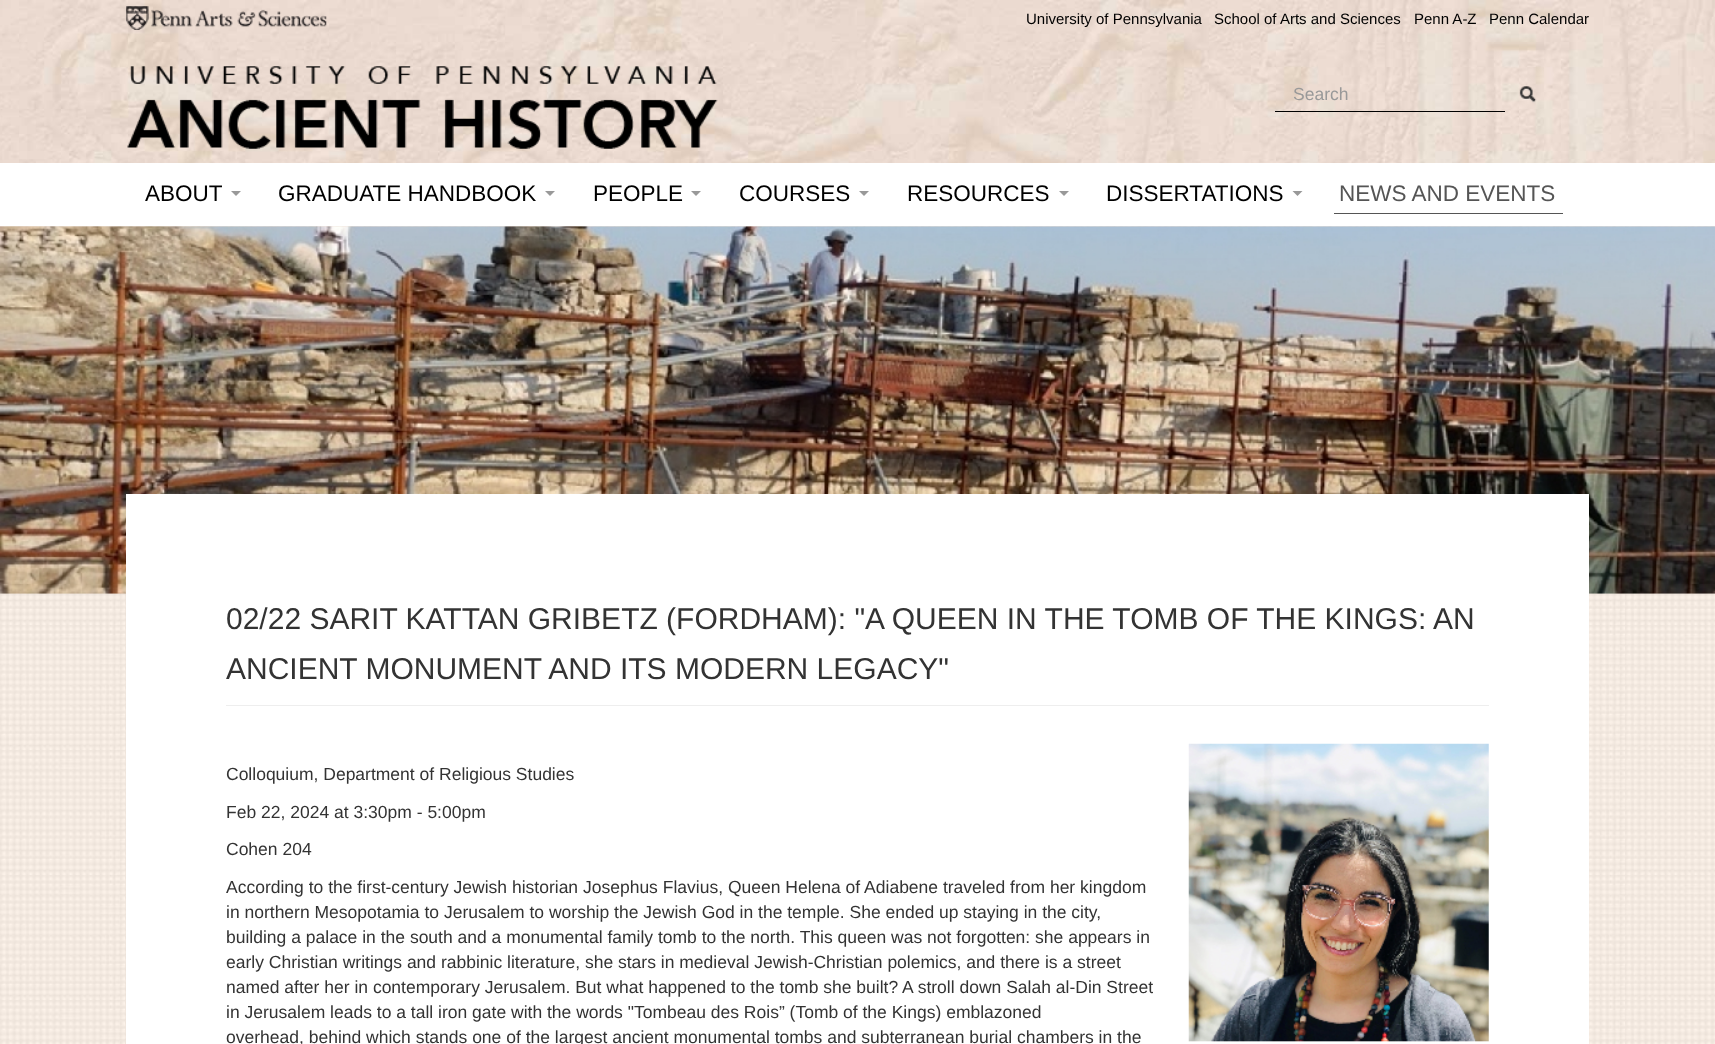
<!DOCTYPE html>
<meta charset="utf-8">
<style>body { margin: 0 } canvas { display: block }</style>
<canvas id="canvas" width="1715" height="1044"></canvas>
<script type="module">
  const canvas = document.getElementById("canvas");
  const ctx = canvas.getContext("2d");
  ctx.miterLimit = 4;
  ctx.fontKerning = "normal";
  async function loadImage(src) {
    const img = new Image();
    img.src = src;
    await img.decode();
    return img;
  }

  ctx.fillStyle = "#ffffff";
  ctx.fillRect(0, 0, 1715, 1044);
  ctx.drawImage(await loadImage("img1.png"), 0, 226, 1715, 818);
  ctx.drawImage(await loadImage("img2.png"), 0, 0, 1715, 227);
  ctx.drawImage(await loadImage("img3.png"), 126, 6, 201, 24);
  ctx.font = "15px Liberation Sans";
  ctx.fillStyle = "#000000";
  ctx.fillText("University of Pennsylvania", 1026, 24);
  ctx.fillText("School of Arts and Sciences", 1214, 24);
  ctx.fillText("Penn A-Z", 1414, 24);
  ctx.fillText("Penn Calendar", 1489, 24);
  ctx.drawImage(await loadImage("img4.png"), 127, 66, 591, 83);
  ctx.fillRect(1275, 111, 230, 1);
  ctx.font = "17.5px Liberation Sans";
  ctx.fillStyle = "#999999";
  ctx.fillText("Search", 1293, 100);
  ctx.drawImage(await loadImage("img5.png"), 1519, 86, 18, 17);
  ctx.fillStyle = "#ffffff";
  ctx.fillRect(0, 163, 1715, 63);
  ctx.font = "22.5px Liberation Sans";
  ctx.fillStyle = "#000000";
  ctx.fillText("ABOUT", 145, 201);
  ctx.fillStyle = "#999999";
  ctx.beginPath();
  ctx.moveTo(231, 191);
  ctx.lineTo(241, 191);
  ctx.lineTo(236, 196);
  ctx.closePath();
  ctx.fill();
  ctx.fillStyle = "#000000";
  ctx.fillText("GRADUATE HANDBOOK", 278, 201);
  ctx.fillStyle = "#999999";
  ctx.beginPath();
  ctx.moveTo(545, 191);
  ctx.lineTo(555, 191);
  ctx.lineTo(550, 196);
  ctx.closePath();
  ctx.fill();
  ctx.fillStyle = "#000000";
  ctx.fillText("PEOPLE", 593, 201);
  ctx.fillStyle = "#999999";
  ctx.beginPath();
  ctx.moveTo(691, 191);
  ctx.lineTo(701, 191);
  ctx.lineTo(696, 196);
  ctx.closePath();
  ctx.fill();
  ctx.fillStyle = "#000000";
  ctx.fillText("COURSES", 739, 201);
  ctx.fillStyle = "#999999";
  ctx.beginPath();
  ctx.moveTo(859, 191);
  ctx.lineTo(869, 191);
  ctx.lineTo(864, 196);
  ctx.closePath();
  ctx.fill();
  ctx.fillStyle = "#000000";
  ctx.fillText("RESOURCES", 907, 201);
  ctx.fillStyle = "#999999";
  ctx.beginPath();
  ctx.moveTo(1059, 191);
  ctx.lineTo(1069, 191);
  ctx.lineTo(1064, 196);
  ctx.closePath();
  ctx.fill();
  ctx.fillStyle = "#000000";
  ctx.fillText("DISSERTATIONS", 1106, 201);
  ctx.fillStyle = "#999999";
  ctx.beginPath();
  ctx.moveTo(1292.5, 191);
  ctx.lineTo(1302.5, 191);
  ctx.lineTo(1297.5, 196);
  ctx.closePath();
  ctx.fill();
  ctx.fillStyle = "#555555";
  ctx.fillRect(1334, 213, 229, 1);
  ctx.fillText("NEWS AND EVENTS", 1339, 201);
  ctx.drawImage(await loadImage("img6.png"), 0, 226, 1715, 368);
  ctx.fillStyle = "#ffffff";
  ctx.fillRect(126, 494, 1463, 550);
  ctx.fillStyle = "#eeeeee";
  ctx.fillRect(226, 705, 1263, 1);
  ctx.font = "30px Liberation Sans";
  ctx.fillStyle = "#333333";
  ctx.fillText("02/22 SARIT KATTAN GRIBETZ (FORDHAM): \"A QUEEN IN THE TOMB OF THE KINGS: AN", 226, 629);
  ctx.fillText("ANCIENT MONUMENT AND ITS MODERN LEGACY\"", 226, 679);
  ctx.font = "17.5px Liberation Sans";
  ctx.fillText("Colloquium, Department of Religious Studies", 226, 780);
  ctx.fillText("Feb 22, 2024 at 3:30pm - 5:00pm", 226, 818);
  ctx.fillText("Cohen 204", 226, 855);
  ctx.fillText("According to the first-century Jewish historian Josephus Flavius, Queen Helena of Adiabene traveled from her kingdom", 226, 893);
  ctx.fillText("in northern Mesopotamia to Jerusalem to worship the Jewish God in the temple. She ended up staying in the city,", 226, 918);
  ctx.fillText("building a palace in the south and a monumental family tomb to the north. This queen was not forgotten: she appears in", 226, 943);
  ctx.fillText("early Christian writings and rabbinic literature, she stars in medieval Jewish-Christian polemics, and there is a street", 226, 968);
  ctx.fillText("named after her in contemporary Jerusalem. But what happened to the tomb she built? A stroll down Salah al-Din Street", 226, 993);
  ctx.fillText("in Jerusalem leads to a tall iron gate with the words \"Tombeau des Rois” (Tomb of the Kings) emblazoned", 226, 1018);
  ctx.fillText("overhead, behind which stands one of the largest ancient monumental tombs and subterranean burial chambers in the", 226, 1043);
  ctx.drawImage(await loadImage("img7.png"), 1188, 743, 301, 299);
</script>
